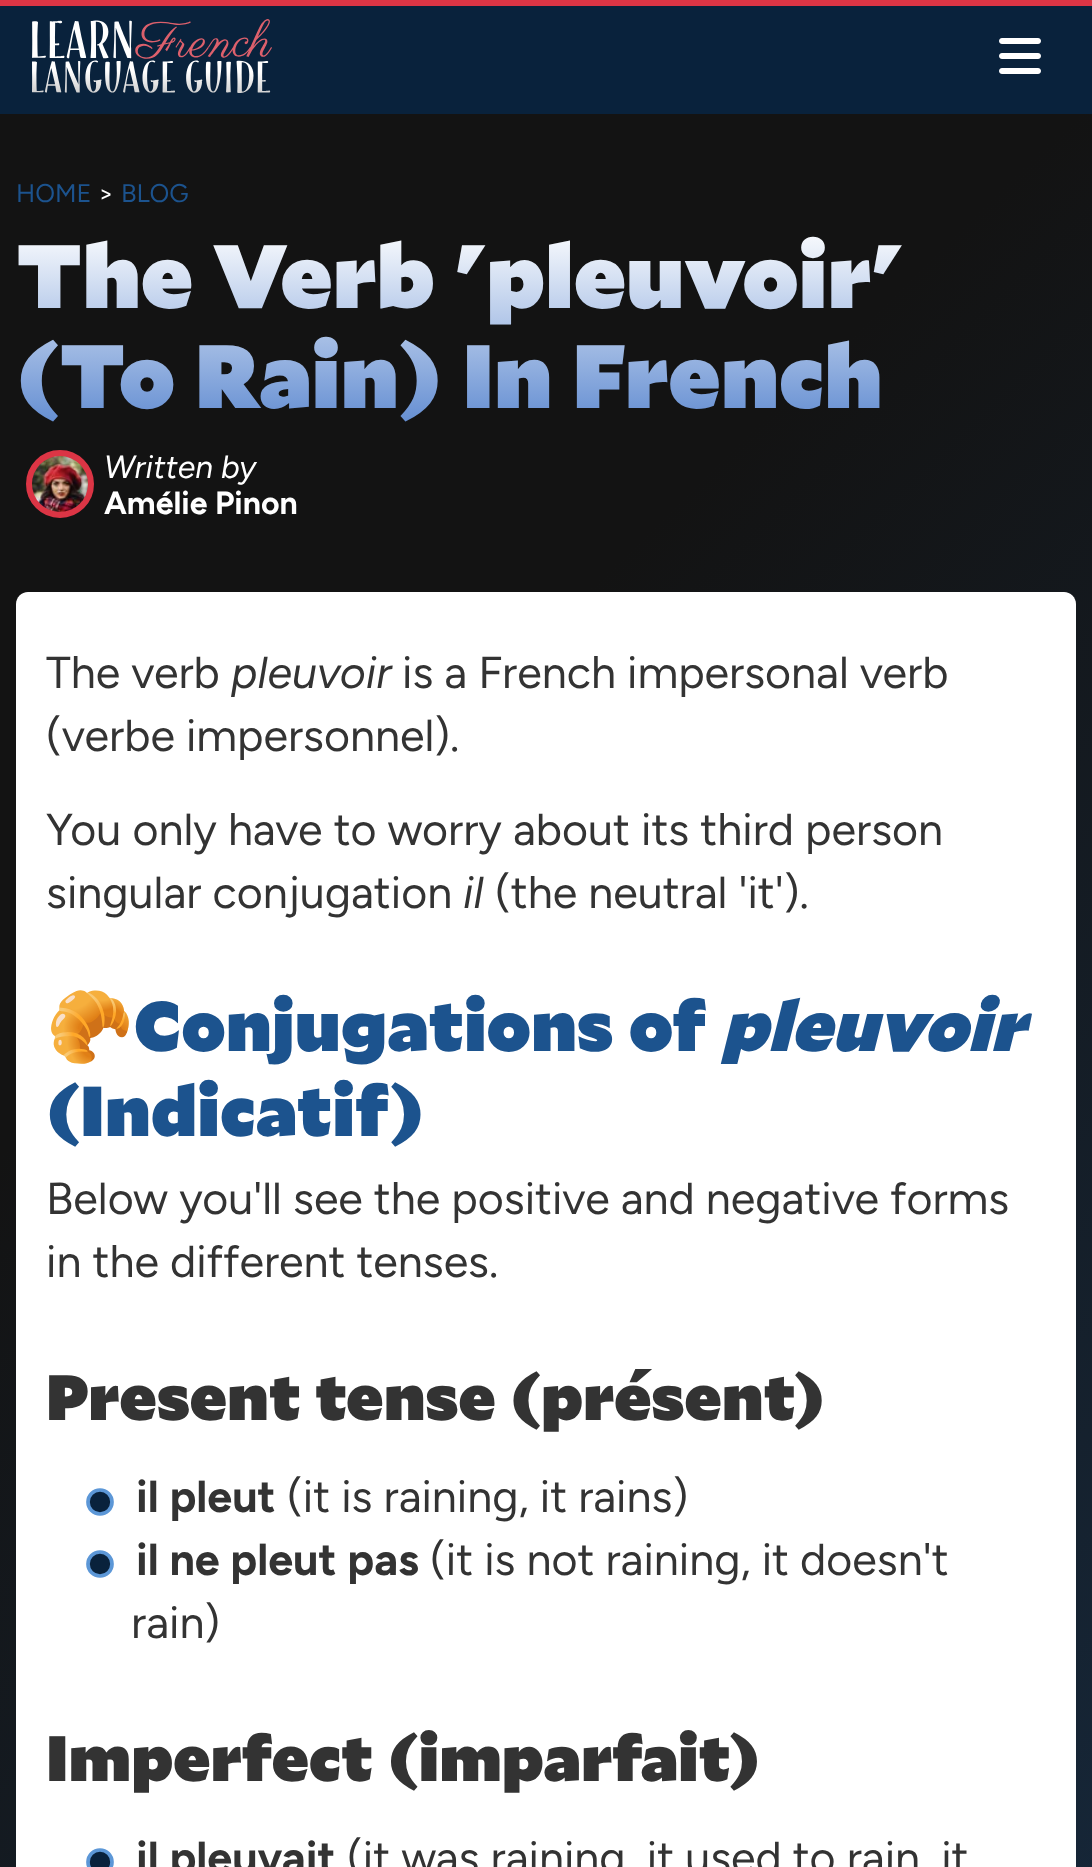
<!DOCTYPE html>
<meta charset="utf-8">
<style>body { margin: 0 } canvas { display: block }</style>
<canvas id="canvas" width="1092" height="1867"></canvas>
<script type="module">
  const canvas = document.getElementById("canvas");
  const ctx = canvas.getContext("2d");
  ctx.miterLimit = 4;
  ctx.fontKerning = "normal";
  async function loadImage(src) {
    const img = new Image();
    img.src = src;
    await img.decode();
    return img;
  }
  let gradient;

  ctx.fillStyle = "#ffffff";
  ctx.fillRect(0, 0, 1092, 1867);
  gradient = ctx.createLinearGradient(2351, 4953, -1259, 1215);
  gradient.addColorStop(0, "#1c538e");
  gradient.addColorStop(0.84, "#131313");
  ctx.fillStyle = gradient;
  ctx.fillRect(0, 114, 1092, 1753);
  ctx.fillStyle = "#09223c";
  ctx.fillRect(0, 6, 1092, 108);
  ctx.fillStyle = "#dc3545";
  ctx.fillRect(0, 0, 1092, 6);
  ctx.drawImage(await loadImage("img1.png"), 32, 19, 240, 74);
  ctx.drawImage(await loadImage("img2.png"), 999, 38, 42, 36);
  ctx.font = "25.5px Figtree";
  ctx.fillStyle = "#1c538e";
  ctx.fillText("HOME", 16, 202);
  ctx.fillStyle = "#ffffff";
  ctx.fillText(">", 98, 202);
  ctx.fillStyle = "#1c538e";
  ctx.fillText("BLOG", 121, 202);
  ctx.font = "900 89.5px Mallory";
  gradient = ctx.createLinearGradient(546, 224, 546, 424);
  gradient.addColorStop(0, "#ffffff");
  gradient.addColorStop(1, "#648ed2");
  ctx.fillStyle = gradient;
  ctx.fillText("The Verb 'pleuvoir'", 16, 308);
  ctx.fillText("(To Rain) In French", 16, 408);
  ctx.fillStyle = "#dc3545";
  ctx.beginPath();
  ctx.arc(60, 484, 31, 0, Math.PI * 2);
  ctx.fill();
  ctx.strokeStyle = "#dc3545";
  ctx.lineWidth = 6;
  ctx.stroke();
  ctx.font = "italic 32px Figtree";
  ctx.fillStyle = "#ffffff";
  ctx.fillText("Written by", 104, 478);
  ctx.font = "bold 32px Figtree";
  ctx.fillText("Amélie Pinon", 104, 514);
  ctx.drawImage(await loadImage("img3.png"), 32, 456, 56, 56);
  ctx.beginPath();
  ctx.moveTo(28, 592);
  ctx.lineTo(1064, 592);
  ctx.bezierCurveTo(1070.5, 592, 1076, 597.5, 1076, 604);
  ctx.lineTo(1076, 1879);
  ctx.lineTo(16, 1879);
  ctx.lineTo(16, 604);
  ctx.bezierCurveTo(16, 597.5, 21.5, 592, 28, 592);
  ctx.closePath();
  ctx.fill();
  ctx.font = "44.8px Figtree";
  ctx.fillStyle = "#333333";
  ctx.fillText("The verb", 46, 688);
  ctx.font = "italic 44.8px Figtree";
  ctx.fillText("pleuvoir", 231, 688);
  ctx.font = "44.8px Figtree";
  ctx.fillText("is a French impersonal verb", 402, 688);
  ctx.fillText("(verbe impersonnel).", 46, 751);
  ctx.fillText("You only have to worry about its third person", 46, 845);
  ctx.fillText("singular conjugation", 46, 908);
  ctx.font = "italic 44.8px Figtree";
  ctx.fillText("il", 463, 908);
  ctx.font = "44.8px Figtree";
  ctx.fillText("(the neutral 'it').", 495, 908);
  ctx.font = "bold 70.5px Noto Color Emoji";
  ctx.fillStyle = "#1c538e";
  ctx.fillText("🥐", 46, 1051);
  ctx.font = "900 70.5px Mallory";
  ctx.fillText("Conjugations of", 134, 1051);
  ctx.font = "italic 900 70.5px Mallory";
  ctx.fillText("pleuvoir", 721, 1051);
  ctx.font = "900 70.5px Mallory";
  ctx.fillText("(Indicatif)", 46, 1136);
  ctx.font = "44.8px Figtree";
  ctx.fillStyle = "#333333";
  ctx.fillText("Below you'll see the positive and negative forms", 46, 1214);
  ctx.fillText("in the different tenses.", 46, 1277);
  ctx.font = "900 64px Mallory";
  ctx.fillText("Present tense (présent)", 46, 1420);
  ctx.fillStyle = "#09223c";
  ctx.beginPath();
  ctx.arc(100, 1502, 12, 0, Math.PI * 2);
  ctx.fill();
  ctx.strokeStyle = "#5c97d7";
  ctx.lineWidth = 3.7;
  ctx.stroke();
  ctx.font = "bold 44.8px Figtree";
  ctx.fillStyle = "#333333";
  ctx.fillText("il pleut", 136, 1512);
  ctx.font = "44.8px Figtree";
  ctx.fillText("(it is raining, it rains)", 287, 1512);
  ctx.fillStyle = "#09223c";
  ctx.beginPath();
  ctx.arc(100, 1564, 12, 0, Math.PI * 2);
  ctx.fill();
  ctx.stroke();
  ctx.font = "bold 44.8px Figtree";
  ctx.fillStyle = "#333333";
  ctx.fillText("il ne pleut pas", 136, 1575);
  ctx.font = "44.8px Figtree";
  ctx.fillText("(it is not raining, it doesn't", 430, 1575);
  ctx.fillText("rain)", 131, 1638);
  ctx.font = "900 64px Mallory";
  ctx.fillText("Imperfect (imparfait)", 46, 1781);
  ctx.fillStyle = "#09223c";
  ctx.beginPath();
  ctx.arc(100, 1862, 12, 0, Math.PI * 2);
  ctx.fill();
  ctx.stroke();
  ctx.font = "bold 44.8px Figtree";
  ctx.fillStyle = "#333333";
  ctx.fillText("il pleuvait", 136, 1873);
  ctx.font = "44.8px Figtree";
  ctx.fillText("(it was raining, it used to rain, it", 347, 1873);
</script>
